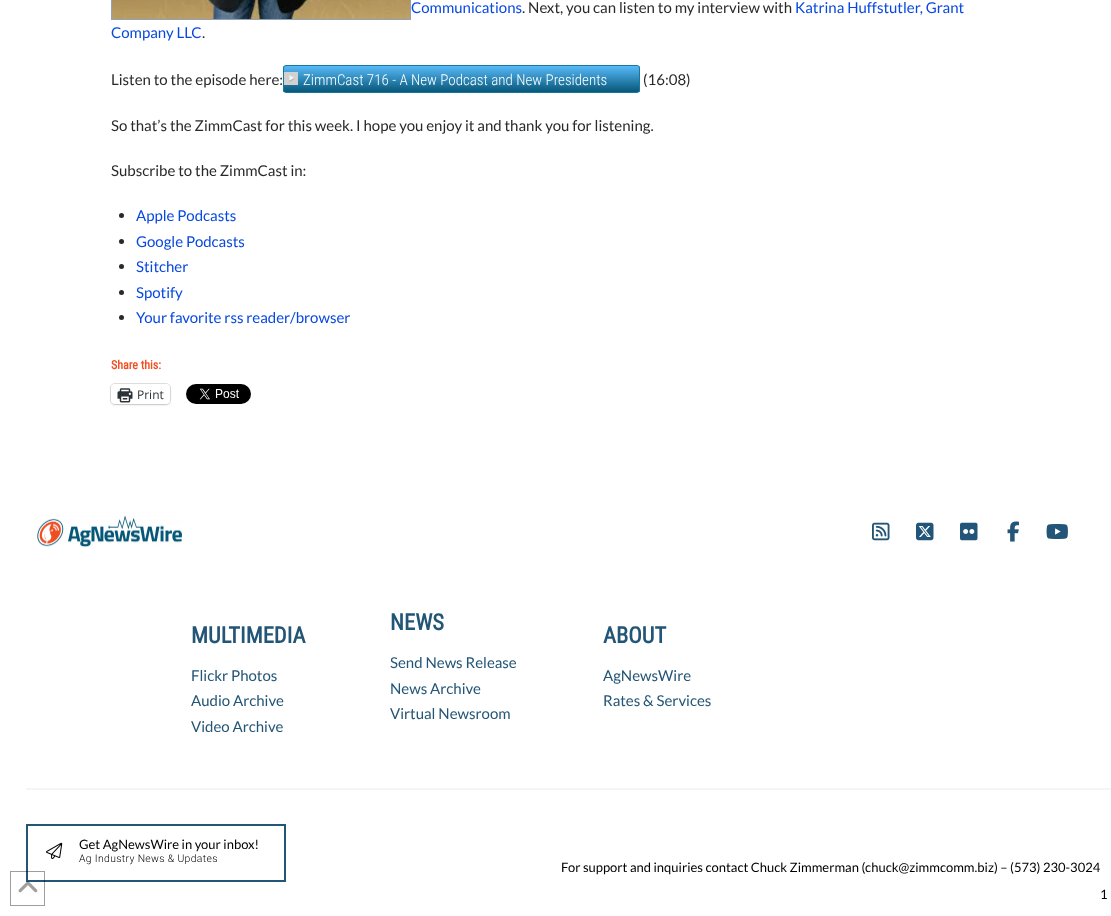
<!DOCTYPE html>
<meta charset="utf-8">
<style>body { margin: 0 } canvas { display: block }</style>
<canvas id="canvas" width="1111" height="916"></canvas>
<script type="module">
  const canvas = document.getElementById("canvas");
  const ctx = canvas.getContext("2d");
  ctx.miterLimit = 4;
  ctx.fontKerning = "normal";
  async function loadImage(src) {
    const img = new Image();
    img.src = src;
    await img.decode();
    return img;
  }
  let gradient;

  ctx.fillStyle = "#ffffff";
  ctx.fillRect(0, 0, 1111, 916);
  ctx.strokeStyle = "#225577";
  ctx.lineWidth = 2;
  ctx.strokeRect(27, 825, 258, 56);
  ctx.strokeStyle = "rgba(0, 0, 0, 0.38)";
  ctx.lineWidth = 1;
  ctx.strokeRect(10.5, 871.5, 34, 34);
  ctx.drawImage(await loadImage("img1.png"), 18, 881, 20, 12);
  ctx.strokeStyle = "#90a2bb";
  ctx.strokeRect(111.5, -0.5, 299, 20);
  ctx.drawImage(await loadImage("img2.png"), 112, 0, 298, 19);
  ctx.font = "15px Lato";
  ctx.fillStyle = "#0848e0";
  ctx.fillText("Communications", 411, 13);
  ctx.fillStyle = "#292929";
  ctx.fillText(". Next, you can listen to my interview with", 522, 13);
  ctx.fillStyle = "#0848e0";
  ctx.fillText("Katrina Huffstutler, Grant", 795, 13);
  ctx.fillText("Company LLC", 111, 38);
  ctx.fillStyle = "#292929";
  ctx.fillText(".", 202, 38);
  ctx.fillText("Listen to the episode here:", 111, 85);
  ctx.save();
  ctx.beginPath();
  ctx.roundRect(283, 65, 357, 28, 3);
  ctx.clip();
  gradient = ctx.createLinearGradient(462, 66, 462, 92);
  gradient.addColorStop(0, "#58baf8");
  gradient.addColorStop(1, "#065779");
  ctx.fillStyle = gradient;
  ctx.fillRect(283, 66, 357, 26);
  ctx.restore();
  ctx.beginPath();
  ctx.roundRect(283.5, 65.5, 356, 27, 2.5);
  ctx.strokeStyle = "#19769c";
  ctx.stroke();
  ctx.fillStyle = "#cccccc";
  ctx.fillRect(284, 72, 14, 13);
  ctx.drawImage(await loadImage("img3.png"), 284, 72, 14, 13);
  ctx.font = "300 15px Roboto Condensed";
  ctx.fillStyle = "#ffffff";
  ctx.fillText("ZimmCast 716 - A New Podcast and New Presidents", 303, 85);
  ctx.font = "15px Lato";
  ctx.fillStyle = "#292929";
  ctx.fillText("(16:08)", 643, 85);
  ctx.fillText("So that’s the ZimmCast for this week. I hope you enjoy it and thank you for listening.", 111, 131);
  ctx.fillText("Subscribe to the ZimmCast in:", 111, 176);
  ctx.beginPath();
  ctx.arc(121.5, 215.5, 2.5, 0, Math.PI * 2);
  ctx.fill();
  ctx.fillStyle = "#0848e0";
  ctx.fillText("Apple Podcasts", 136, 221);
  ctx.fillStyle = "#292929";
  ctx.beginPath();
  ctx.arc(121.5, 241.5, 2.5, 0, Math.PI * 2);
  ctx.fill();
  ctx.fillStyle = "#0848e0";
  ctx.fillText("Google Podcasts", 136, 247);
  ctx.fillStyle = "#292929";
  ctx.beginPath();
  ctx.arc(121.5, 266.5, 2.5, 0, Math.PI * 2);
  ctx.fill();
  ctx.fillStyle = "#0848e0";
  ctx.fillText("Stitcher", 136, 272);
  ctx.fillStyle = "#292929";
  ctx.beginPath();
  ctx.arc(121.5, 292.5, 2.5, 0, Math.PI * 2);
  ctx.fill();
  ctx.fillStyle = "#0848e0";
  ctx.fillText("Spotify", 136, 298);
  ctx.fillStyle = "#292929";
  ctx.beginPath();
  ctx.arc(121.5, 317.5, 2.5, 0, Math.PI * 2);
  ctx.fill();
  ctx.fillStyle = "#0848e0";
  ctx.fillText("Your favorite rss reader/browser", 136, 323);
  ctx.font = "bold 12px Roboto Condensed";
  ctx.fillStyle = "#f04e23";
  ctx.fillText("Share this:", 111, 369);
  ctx.beginPath();
  ctx.roundRect(110.5, 383.5, 60, 21, 4.5);
  ctx.strokeStyle = "#e0e0e0";
  ctx.stroke();
  ctx.fillStyle = "rgba(0, 0, 0, 0.12)";
  ctx.filter = "blur(1px)";
  ctx.beginPath();
  ctx.roundRect(111, 385, 59, 20, 4);
  ctx.fill();
  ctx.filter = "none";
  ctx.fillStyle = "#ffffff";
  ctx.beginPath();
  ctx.roundRect(111, 384, 59, 20, 4);
  ctx.fill();
  ctx.drawImage(await loadImage("img4.png"), 117, 388, 16, 15);
  ctx.font = "12px Open Sans";
  ctx.fillStyle = "#2c3338";
  ctx.fillText("Print", 137, 399);
  ctx.drawImage(await loadImage("img5.png"), 186, 384, 65, 20);
  ctx.drawImage(await loadImage("img6.png"), 37, 515, 145, 33);
  ctx.drawImage(await loadImage("img7.png"), 872, 522, 18, 19);
  ctx.drawImage(await loadImage("img8.png"), 916, 522, 18, 19);
  ctx.drawImage(await loadImage("img9.png"), 960, 522, 18, 19);
  ctx.drawImage(await loadImage("img10.png"), 1007, 521, 12, 21);
  ctx.drawImage(await loadImage("img11.png"), 1046, 524, 22, 15);
  ctx.font = "bold 22.5px Roboto Condensed";
  ctx.fillStyle = "#235576";
  ctx.fillText("MULTIMEDIA", 191, 643);
  ctx.font = "15px Lato";
  ctx.fillText("Flickr Photos", 191, 681);
  ctx.fillText("Audio Archive", 191, 706);
  ctx.fillText("Video Archive", 191, 732);
  ctx.font = "bold 22.5px Roboto Condensed";
  ctx.fillText("NEWS", 390, 630);
  ctx.font = "15px Lato";
  ctx.fillText("Send News Release", 390, 668);
  ctx.fillText("News Archive", 390, 694);
  ctx.fillText("Virtual Newsroom", 390, 719);
  ctx.font = "bold 22.5px Roboto Condensed";
  ctx.fillText("ABOUT", 603, 643);
  ctx.font = "15px Lato";
  ctx.fillText("AgNewsWire", 603, 681);
  ctx.fillText("Rates & Services", 603, 706);
  ctx.fillStyle = "#f4f5f7";
  ctx.fillRect(26, 788, 1085, 2);
  ctx.drawImage(await loadImage("img12.png"), 46, 842, 17, 17);
  ctx.font = "13px Lato";
  ctx.fillStyle = "#000000";
  ctx.fillText("Get AgNewsWire in your inbox!", 79, 849);
  ctx.letterSpacing = "0.35px";
  ctx.font = "300 10.4px Roboto";
  ctx.fillText("Ag Industry News & Updates", 79, 862);
  ctx.letterSpacing = "0px";
  ctx.font = "13px Lato";
  ctx.fillText("For support and inquiries contact Chuck Zimmerman (chuck@zimmcomm.biz) – (573) 230-3024", 561, 872);
  ctx.fillText("1", 1100, 899);
</script>
